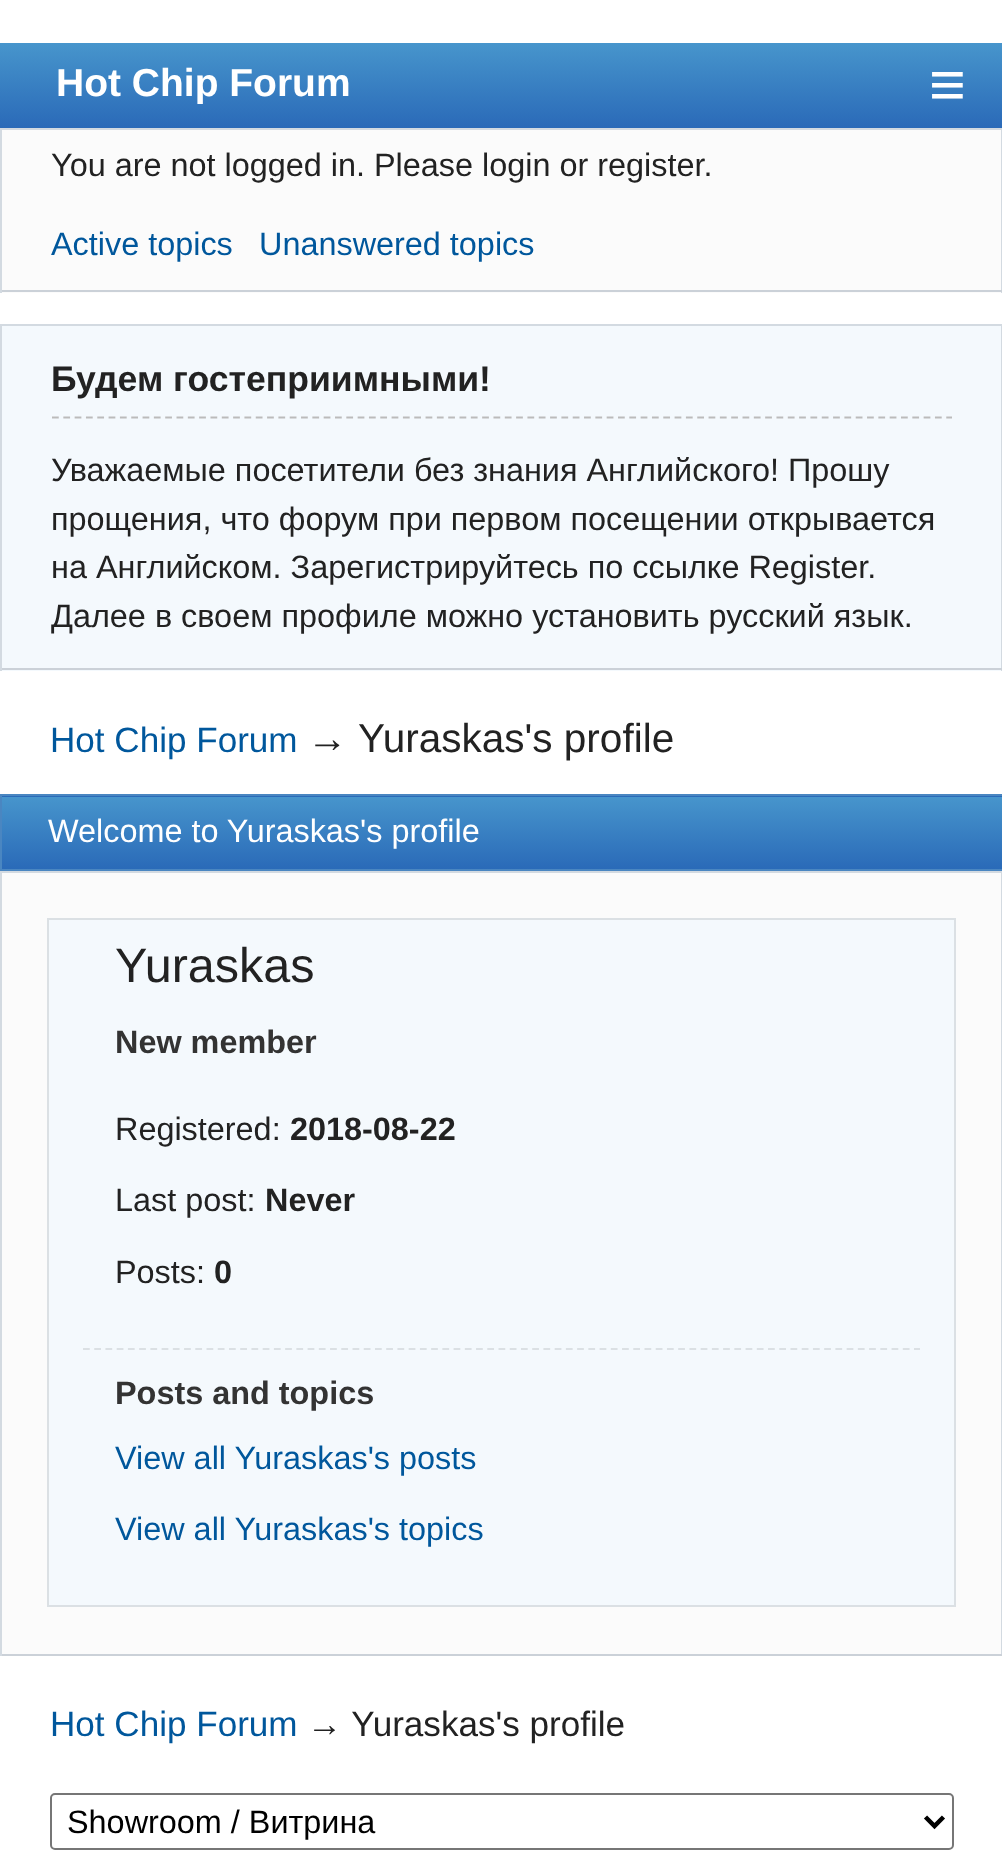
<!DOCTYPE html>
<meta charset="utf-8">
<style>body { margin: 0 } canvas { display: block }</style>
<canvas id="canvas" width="1002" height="1866"></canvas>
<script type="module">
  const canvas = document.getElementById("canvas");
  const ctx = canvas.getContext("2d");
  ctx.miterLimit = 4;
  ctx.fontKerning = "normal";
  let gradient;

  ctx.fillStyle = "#ffffff";
  ctx.fillRect(0, 0, 1002, 1866);
  gradient = ctx.createLinearGradient(502, 128, 502, 43);
  gradient.addColorStop(0, "#2a6ab8");
  gradient.addColorStop(1, "#4795cc");
  ctx.fillStyle = gradient;
  ctx.fillRect(0, 43, 1002, 85);
  ctx.font = "bold 39px Liberation Sans";
  ctx.fillStyle = "#ffffff";
  ctx.fillText("Hot Chip Forum", 56, 96);
  ctx.font = "63px Liberation Sans";
  ctx.fillText("≡", 929, 106);
  ctx.fillStyle = "#fbfbfb";
  ctx.fillRect(2, 130, 999, 163);
  ctx.fillStyle = "#d3dae1";
  ctx.fillRect(0, 128, 1002, 2);
  ctx.fillRect(1001, 128, 1, 165);
  ctx.fillStyle = "#cbd1d8";
  ctx.fillRect(0, 290, 1002, 2);
  ctx.fillStyle = "#d3dae1";
  ctx.fillRect(0, 128, 2, 165);
  ctx.font = "32.4px Liberation Sans";
  ctx.fillStyle = "#222222";
  ctx.fillText("You are not logged in. Please login or register.", 51, 176);
  ctx.fillStyle = "#00579c";
  ctx.fillText("Active topics", 51, 255);
  ctx.fillText("Unanswered topics", 259, 255);
  ctx.fillStyle = "#f4f9fd";
  ctx.fillRect(2, 326, 999, 345);
  ctx.fillStyle = "#d3dae1";
  ctx.fillRect(0, 324, 1002, 2);
  ctx.fillRect(1001, 324, 1, 347);
  ctx.fillStyle = "#cbd1d8";
  ctx.fillRect(0, 668, 1002, 2);
  ctx.fillStyle = "#d3dae1";
  ctx.fillRect(0, 324, 2, 347);
  ctx.beginPath();
  ctx.moveTo(52, 417.5);
  ctx.lineTo(952, 417.5);
  ctx.strokeStyle = "#bbbbbb";
  ctx.lineWidth = 2.2;
  ctx.setLineDash([6.75, 4.57]);
  ctx.stroke();
  ctx.font = "bold 35.6px Liberation Sans";
  ctx.fillStyle = "#222222";
  ctx.fillText("Будем гостеприимными!", 51, 391);
  ctx.font = "32.4px Liberation Sans";
  ctx.fillText("Уважаемые посетители без знания Английского! Прошу", 51, 481);
  ctx.fillText("прощения, что форум при первом посещении открывается", 51, 530);
  ctx.fillText("на Английском. Зарегистрируйтесь по ссылке Register.", 51, 578);
  ctx.fillText("Далее в своем профиле можно установить русский язык.", 51, 627);
  ctx.font = "35.1px Liberation Sans";
  ctx.fillStyle = "#00579c";
  ctx.fillText("Hot Chip Forum", 50, 752);
  ctx.font = "40.5px Liberation Sans";
  ctx.fillStyle = "#222222";
  ctx.fillText("→ Yuraskas's profile", 307, 752);
  gradient = ctx.createLinearGradient(502, 797, 502, 725);
  gradient.addColorStop(0, "#2a6ab8");
  gradient.addColorStop(1, "#4795cc");
  ctx.fillStyle = gradient;
  ctx.fillRect(0, 796, 1002, 1);
  gradient = ctx.createLinearGradient(502, 869, 502, 797);
  gradient.addColorStop(0, "#2a6ab8");
  gradient.addColorStop(1, "#4795cc");
  ctx.fillStyle = gradient;
  ctx.fillRect(2, 797, 1000, 72);
  ctx.strokeStyle = "#4a86c1";
  ctx.lineWidth = 2;
  ctx.setLineDash([]);
  ctx.strokeRect(1, 795, 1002, 75);
  ctx.font = "32.4px Liberation Sans";
  ctx.fillStyle = "#ffffff";
  ctx.fillText("Welcome to Yuraskas's profile", 48, 842);
  ctx.fillStyle = "#fbfbfb";
  ctx.fillRect(2, 873, 999, 781);
  ctx.fillStyle = "#d3dae1";
  ctx.fillRect(0, 871, 1002, 2);
  ctx.fillRect(1001, 871, 1, 785);
  ctx.fillStyle = "#cbd1d8";
  ctx.fillRect(0, 1654, 1002, 2);
  ctx.fillStyle = "#d3dae1";
  ctx.fillRect(0, 871, 2, 785);
  ctx.fillStyle = "#f4f9fd";
  ctx.beginPath();
  ctx.rect(48, 919, 907, 687);
  ctx.fill();
  ctx.strokeStyle = "#dbe0e4";
  ctx.stroke();
  ctx.font = "48.5px Liberation Sans";
  ctx.fillStyle = "#222222";
  ctx.fillText("Yuraskas", 115, 982);
  ctx.font = "bold 32.4px Liberation Sans";
  ctx.fillStyle = "#333333";
  ctx.fillText("New member", 115, 1053);
  ctx.font = "32.4px Liberation Sans";
  ctx.fillStyle = "#222222";
  ctx.fillText("Registered:", 115, 1140);
  ctx.font = "bold 32.4px Liberation Sans";
  ctx.fillText("2018-08-22", 290, 1140);
  ctx.font = "32.4px Liberation Sans";
  ctx.fillText("Last post:", 115, 1211);
  ctx.font = "bold 32.4px Liberation Sans";
  ctx.fillText("Never", 265, 1211);
  ctx.font = "32.4px Liberation Sans";
  ctx.fillText("Posts:", 115, 1283);
  ctx.font = "bold 32.4px Liberation Sans";
  ctx.fillText("0", 214, 1283);
  ctx.beginPath();
  ctx.moveTo(83, 1349);
  ctx.lineTo(920, 1349);
  ctx.lineWidth = 2.2;
  ctx.setLineDash([6.75, 4.48]);
  ctx.stroke();
  ctx.fillStyle = "#333333";
  ctx.fillText("Posts and topics", 115, 1404);
  ctx.font = "32.4px Liberation Sans";
  ctx.fillStyle = "#00579c";
  ctx.fillText("View all Yuraskas's posts", 115, 1469);
  ctx.fillText("View all Yuraskas's topics", 115, 1540);
  ctx.font = "35.1px Liberation Sans";
  ctx.fillText("Hot Chip Forum", 50, 1736);
  ctx.fillStyle = "#222222";
  ctx.fillText("→ Yuraskas's profile", 307, 1736);
  ctx.beginPath();
  ctx.roundRect(51, 1794, 902, 55, 4);
  ctx.strokeStyle = "#767676";
  ctx.lineWidth = 2;
  ctx.setLineDash([]);
  ctx.stroke();
  ctx.beginPath();
  ctx.moveTo(925.5, 1817);
  ctx.lineTo(934.5, 1826);
  ctx.lineTo(943.5, 1817);
  ctx.strokeStyle = "#000000";
  ctx.lineWidth = 4.5;
  ctx.stroke();
  ctx.font = "32.4px Liberation Sans";
  ctx.fillStyle = "#000000";
  ctx.fillText("Showroom / Витрина", 67, 1833);
</script>
